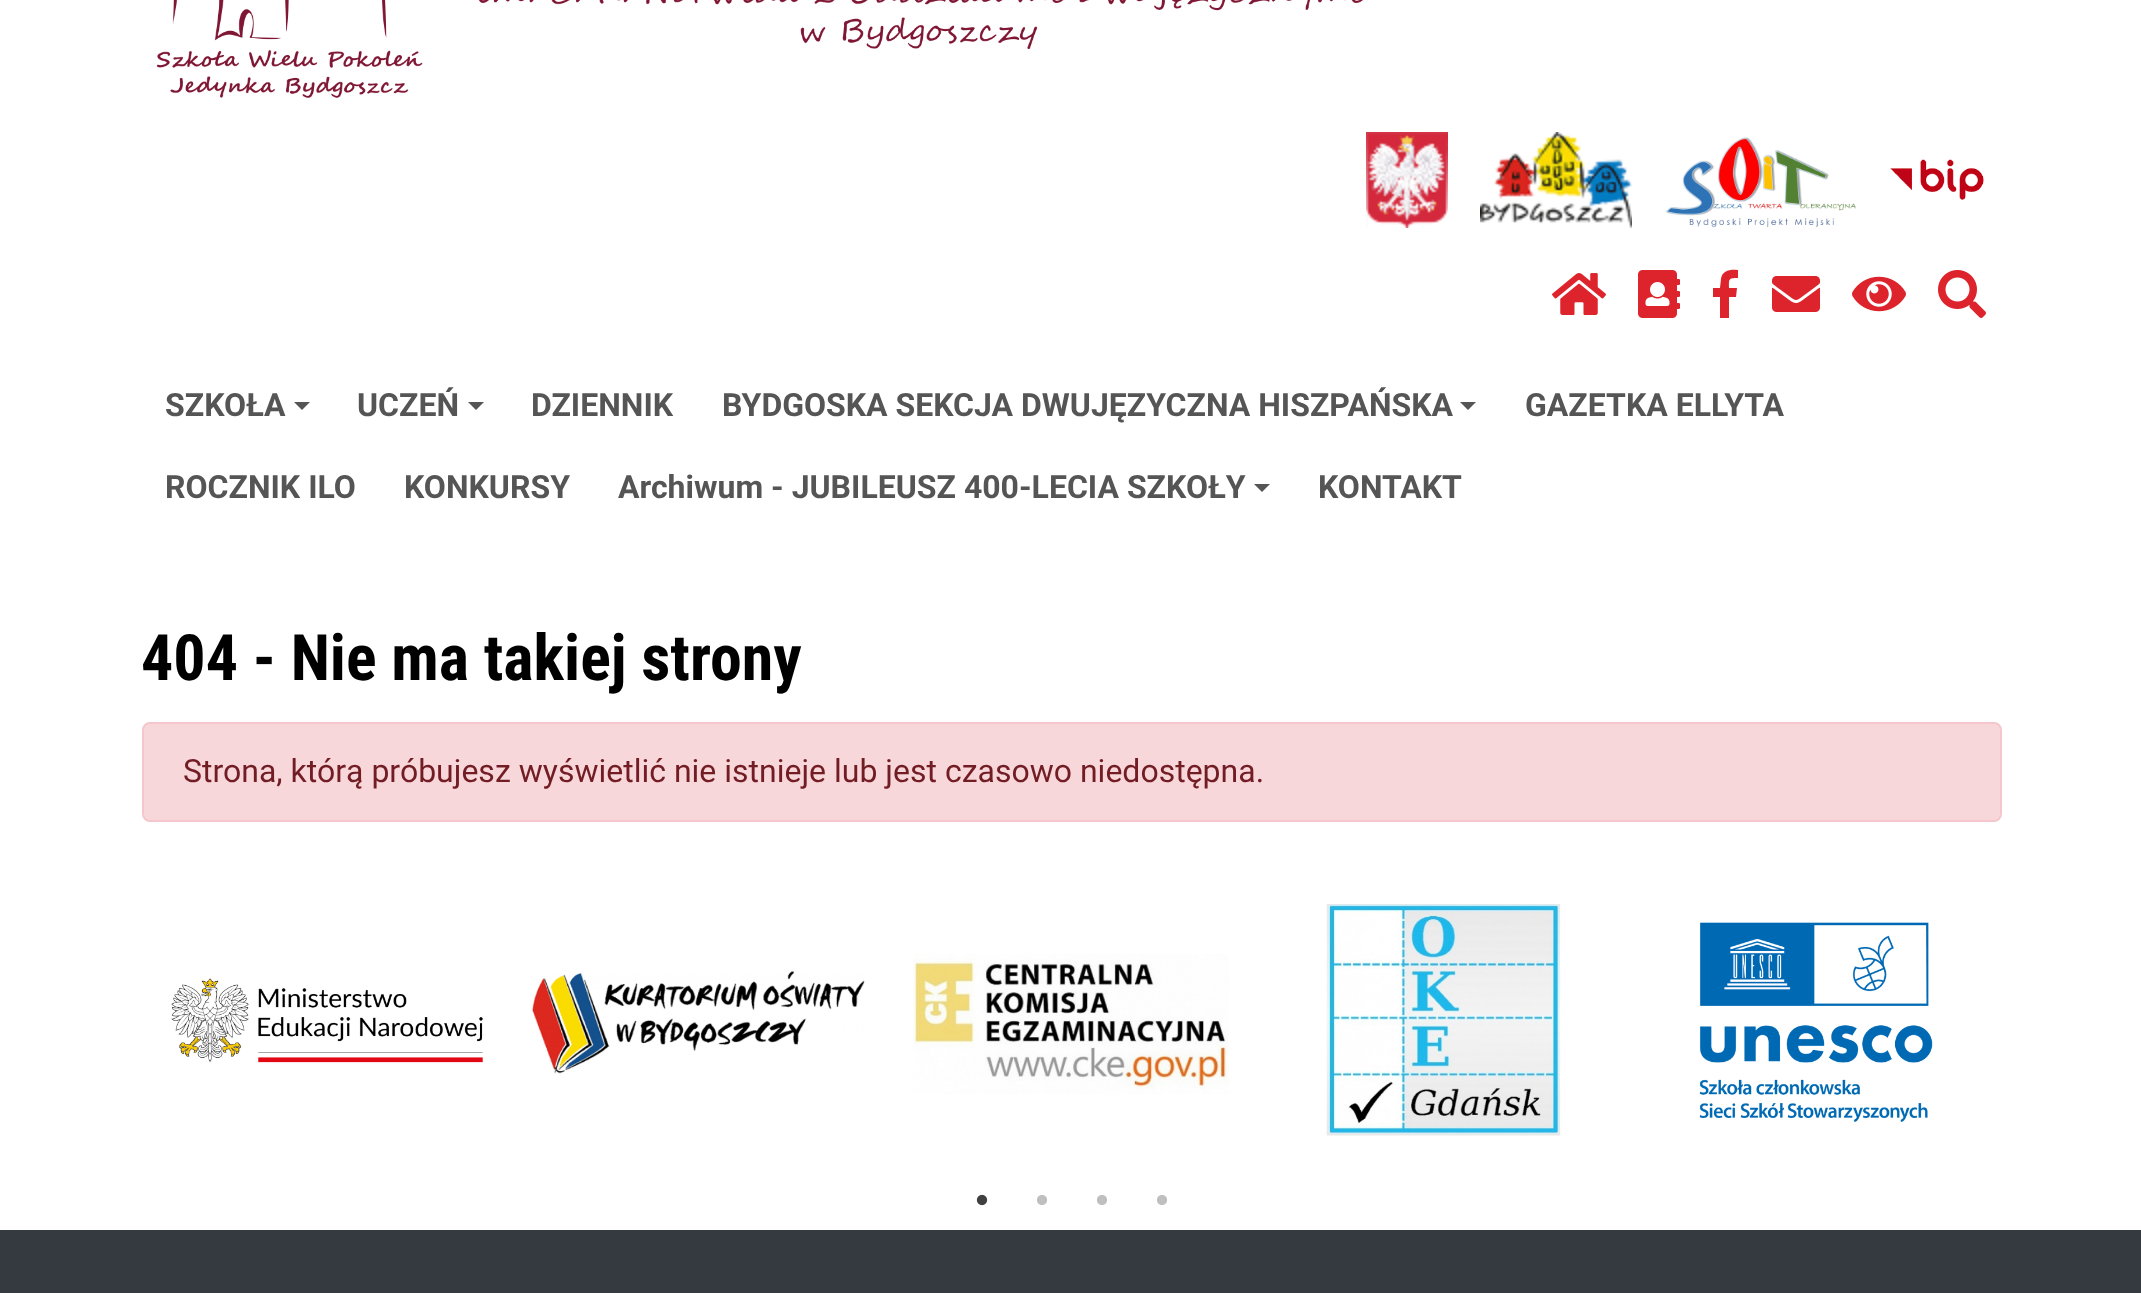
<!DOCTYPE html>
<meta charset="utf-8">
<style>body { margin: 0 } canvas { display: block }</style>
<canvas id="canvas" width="2141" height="1293"></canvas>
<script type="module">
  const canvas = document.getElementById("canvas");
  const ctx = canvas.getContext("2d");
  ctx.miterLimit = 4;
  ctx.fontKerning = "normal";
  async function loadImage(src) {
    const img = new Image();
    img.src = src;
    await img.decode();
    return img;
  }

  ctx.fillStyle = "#ffffff";
  ctx.fillRect(0, 0, 2141, 1293);
  ctx.drawImage(await loadImage("img1.png"), 156, 0, 1207, 98);
  ctx.drawImage(await loadImage("img2.png"), 1366, 132, 82, 96);
  ctx.drawImage(await loadImage("img3.png"), 1480, 132, 152, 96);
  ctx.drawImage(await loadImage("img4.png"), 1665, 137, 191, 91);
  ctx.drawImage(await loadImage("img5.png"), 1890, 159, 94, 41);
  ctx.drawImage(await loadImage("img6.png"), 1552, 273, 54, 42);
  ctx.drawImage(await loadImage("img7.png"), 1638, 270, 42, 48);
  ctx.fillStyle = "#dd232b";
  ctx.beginPath();
  ctx.moveTo(1720, 318);
  ctx.lineTo(1720, 297);
  ctx.lineTo(1713, 297);
  ctx.lineTo(1713, 288);
  ctx.lineTo(1720, 288);
  ctx.lineTo(1721, 279);
  ctx.bezierCurveTo(1722, 270, 1731, 269, 1738, 270);
  ctx.lineTo(1738, 278);
  ctx.bezierCurveTo(1728, 278, 1729, 279, 1729, 288);
  ctx.lineTo(1737, 288);
  ctx.lineTo(1736, 297);
  ctx.lineTo(1729, 297);
  ctx.lineTo(1729, 318);
  ctx.fill();
  ctx.drawImage(await loadImage("img8.png"), 1772, 276, 48, 36);
  ctx.drawImage(await loadImage("img9.png"), 1852, 276, 54, 36);
  ctx.drawImage(await loadImage("img10.png"), 1938, 270, 48, 48);
  ctx.font = "bold 32px Roboto";
  ctx.fillStyle = "#555555";
  ctx.fillText("SZKOŁA", 165, 416);
  ctx.beginPath();
  ctx.moveTo(294, 402);
  ctx.lineTo(310, 402);
  ctx.lineTo(302, 410);
  ctx.closePath();
  ctx.fill();
  ctx.fillText("UCZEŃ", 357, 416);
  ctx.beginPath();
  ctx.moveTo(468, 402);
  ctx.lineTo(484, 402);
  ctx.lineTo(476, 410);
  ctx.closePath();
  ctx.fill();
  ctx.fillText("DZIENNIK", 531, 416);
  ctx.fillText("BYDGOSKA SEKCJA DWUJĘZYCZNA HISZPAŃSKA", 722, 416);
  ctx.beginPath();
  ctx.moveTo(1460, 402);
  ctx.lineTo(1476, 402);
  ctx.lineTo(1468, 410);
  ctx.closePath();
  ctx.fill();
  ctx.fillText("GAZETKA ELLYTA", 1525, 416);
  ctx.fillText("ROCZNIK ILO", 165, 498);
  ctx.fillText("KONKURSY", 404, 498);
  ctx.fillText("Archiwum - JUBILEUSZ 400-LECIA SZKOŁY", 618, 498);
  ctx.beginPath();
  ctx.moveTo(1254, 484);
  ctx.lineTo(1270, 484);
  ctx.lineTo(1262, 492);
  ctx.closePath();
  ctx.fill();
  ctx.fillText("KONTAKT", 1318, 498);
  ctx.font = "bold 64px Roboto Condensed";
  ctx.fillStyle = "#000000";
  ctx.fillText("404 - Nie ma takiej strony", 141, 680);
  ctx.fillStyle = "#f8d7da";
  ctx.beginPath();
  ctx.roundRect(143, 723, 1858, 98, 7);
  ctx.fill();
  ctx.strokeStyle = "#f5c6cb";
  ctx.lineWidth = 2;
  ctx.stroke();
  ctx.font = "32px Roboto";
  ctx.fillStyle = "#721c24";
  ctx.fillText("Strona, którą próbujesz wyświetlić nie istnieje lub jest czasowo niedostępna.", 183, 782);
  ctx.drawImage(await loadImage("img11.png"), 171, 978, 312, 85);
  ctx.drawImage(await loadImage("img12.png"), 531, 971, 334, 103);
  ctx.drawImage(await loadImage("img13.png"), 913, 954, 316, 140);
  ctx.drawImage(await loadImage("img14.png"), 1324, 904, 240, 232);
  ctx.drawImage(await loadImage("img15.png"), 1699, 922, 234, 200);
  ctx.drawImage(await loadImage("img16.png"), 976, 1194, 12, 12);
  ctx.drawImage(await loadImage("img17.png"), 1037, 1195, 10, 10);
  ctx.drawImage(await loadImage("img17.png"), 1097, 1195, 10, 10);
  ctx.drawImage(await loadImage("img17.png"), 1157, 1195, 10, 10);
  ctx.fillStyle = "#343a40";
  ctx.fillRect(0, 1230, 2141, 63);
</script>
